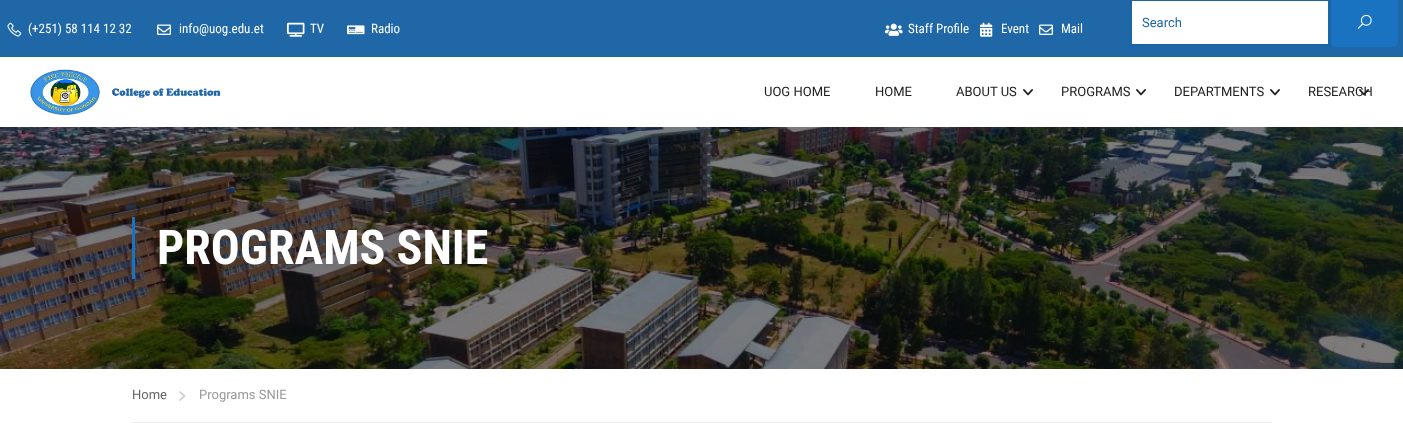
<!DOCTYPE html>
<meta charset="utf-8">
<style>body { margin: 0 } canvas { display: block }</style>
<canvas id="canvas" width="1403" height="425"></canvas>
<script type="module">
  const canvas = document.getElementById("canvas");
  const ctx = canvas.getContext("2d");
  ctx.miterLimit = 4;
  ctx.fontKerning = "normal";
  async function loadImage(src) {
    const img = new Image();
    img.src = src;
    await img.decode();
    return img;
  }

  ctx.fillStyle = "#ffffff";
  ctx.fillRect(0, 0, 1403, 425);
  ctx.fillStyle = "#1f67a7";
  ctx.fillRect(0, 0, 1403, 57);
  ctx.drawImage(await loadImage("img1.png"), 7, 22, 15, 15);
  ctx.font = "13px Roboto Condensed";
  ctx.fillStyle = "#ffffff";
  ctx.fillText("(+251) 58 114 12 32", 28, 33);
  ctx.drawImage(await loadImage("img2.png"), 157, 24, 14, 11);
  ctx.fillText("info@uog.edu.et", 179, 33);
  ctx.drawImage(await loadImage("img3.png"), 287, 22, 18, 15);
  ctx.fillText("TV", 310, 33);
  ctx.drawImage(await loadImage("img4.png"), 347, 25, 18, 10);
  ctx.fillText("Radio", 371, 33);
  ctx.drawImage(await loadImage("img5.png"), 885, 23, 18, 13);
  ctx.fillText("Staff Profile", 908, 33);
  ctx.drawImage(await loadImage("img6.png"), 980, 22, 13, 15);
  ctx.fillText("Event", 1001, 33);
  ctx.drawImage(await loadImage("img2.png"), 1039, 24, 14, 11);
  ctx.fillText("Mail", 1061, 33);
  ctx.beginPath();
  ctx.rect(1130.5, -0.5, 199, 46);
  ctx.fill();
  ctx.strokeStyle = "#1b66a4";
  ctx.lineWidth = 3;
  ctx.stroke();
  ctx.font = "13px Roboto";
  ctx.fillStyle = "#1b66a4";
  ctx.fillText("Search", 1142, 27);
  ctx.fillStyle = "#1a73c0";
  ctx.beginPath();
  ctx.roundRect(1331, -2, 67, 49, 5);
  ctx.fill();
  ctx.drawImage(await loadImage("img7.png"), 1357, 14, 15, 15);
  ctx.drawImage(await loadImage("img8.png"), 30, 69, 191, 46);
  ctx.fillStyle = "#202020";
  ctx.fillText("UOG HOME", 764, 96);
  ctx.fillText("HOME", 875, 96);
  ctx.fillText("ABOUT US", 956, 96);
  ctx.drawImage(await loadImage("img9.png"), 1023, 89, 10, 7);
  ctx.fillText("PROGRAMS", 1061, 96);
  ctx.drawImage(await loadImage("img9.png"), 1136, 89, 10, 7);
  ctx.fillText("DEPARTMENTS", 1174, 96);
  ctx.drawImage(await loadImage("img9.png"), 1270, 89, 10, 7);
  ctx.fillText("RESEARCH", 1308, 96);
  ctx.drawImage(await loadImage("img10.png"), 1359, 89, 10, 7);
  ctx.drawImage(await loadImage("img11.png"), 0, 127, 1403, 242);
  ctx.fillStyle = "#1a73c0";
  ctx.fillRect(132, 217, 3, 62);
  ctx.font = "bold 48px Roboto Condensed";
  ctx.fillStyle = "#ffffff";
  ctx.fillText("PROGRAMS SNIE", 157, 264);
  ctx.fillStyle = "#eeeeee";
  ctx.fillRect(132, 422, 1140, 1);
  ctx.font = "13px Roboto";
  ctx.fillStyle = "#666666";
  ctx.fillText("Home", 132, 399);
  ctx.drawImage(await loadImage("img12.png"), 179, 391, 7, 10);
  ctx.fillStyle = "#999999";
  ctx.fillText("Programs SNIE", 199, 399);
</script>
